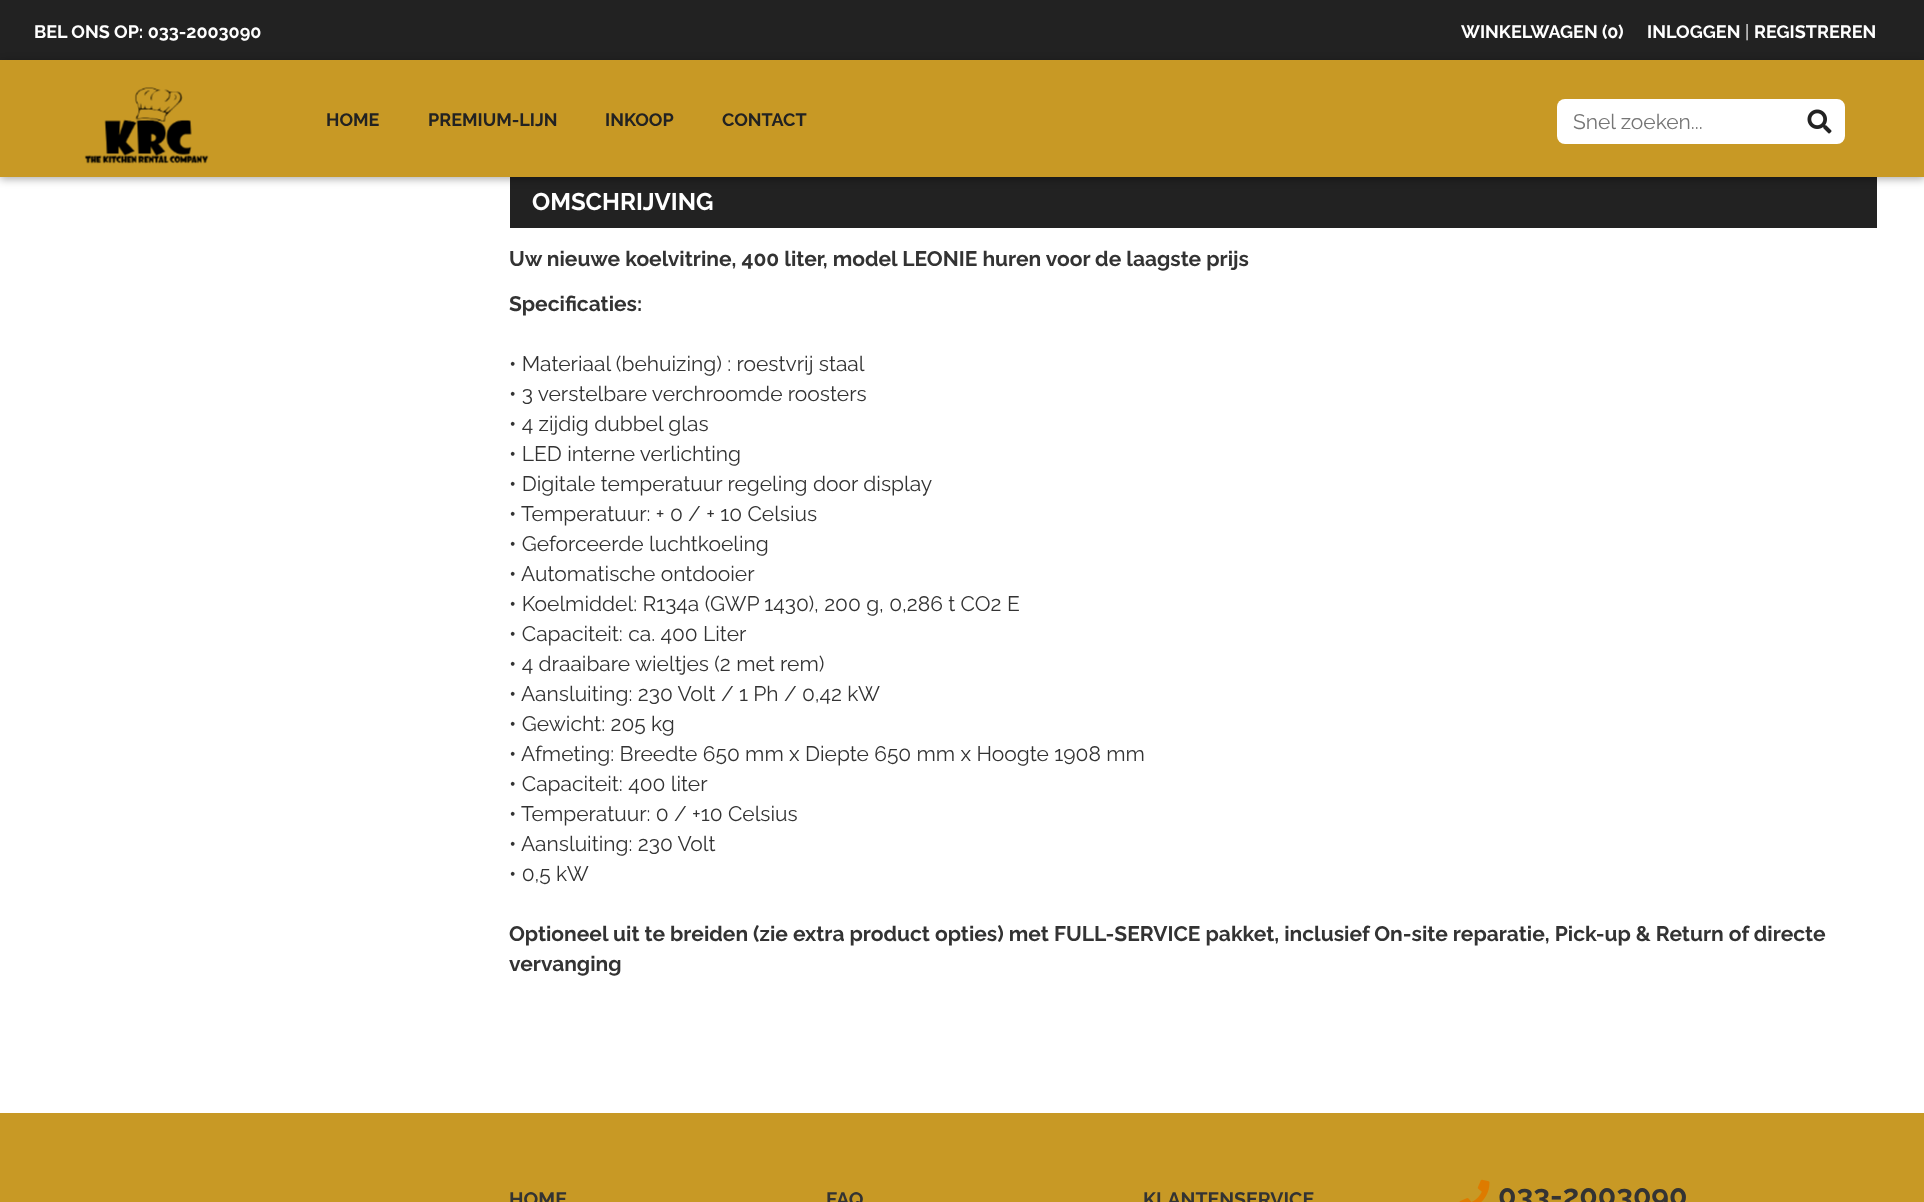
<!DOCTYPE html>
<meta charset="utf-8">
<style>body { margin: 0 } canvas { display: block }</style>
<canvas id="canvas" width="1924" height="1202"></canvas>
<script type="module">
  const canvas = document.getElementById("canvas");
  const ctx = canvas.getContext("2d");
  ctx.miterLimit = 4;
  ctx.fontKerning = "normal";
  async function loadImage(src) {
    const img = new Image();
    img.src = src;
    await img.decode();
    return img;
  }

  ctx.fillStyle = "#ffffff";
  ctx.fillRect(0, 0, 1924, 1202);
  ctx.fillStyle = "#222222";
  ctx.fillRect(0, 0, 1924, 60);
  ctx.font = "bold 18px Raleway";
  ctx.fillStyle = "#ffffff";
  ctx.fillText("BEL ONS OP: 033-2003090", 34, 38);
  ctx.fillText("WINKELWAGEN (0)", 1461, 38);
  ctx.fillText("INLOGGEN", 1647, 38);
  ctx.font = "18px Raleway";
  ctx.fillText("|", 1745, 38);
  ctx.font = "bold 18px Raleway";
  ctx.fillText("REGISTREREN", 1754, 38);
  ctx.fillStyle = "#222222";
  ctx.fillRect(510, 177, 1367, 51);
  ctx.fillStyle = "rgba(0, 0, 0, 0.33)";
  ctx.filter = "blur(4px)";
  ctx.beginPath();
  ctx.rect(0, 62, 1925, 117);
  ctx.fill();
  ctx.filter = "none";
  ctx.fillStyle = "#c89925";
  ctx.fillRect(0, 60, 1924, 117);
  ctx.drawImage(await loadImage("img1.png"), 84, 87, 125, 77);
  ctx.fillStyle = "#222222";
  ctx.fillText("HOME", 326, 126);
  ctx.fillText("PREMIUM-LIJN", 428, 126);
  ctx.fillText("INKOOP", 605, 126);
  ctx.fillText("CONTACT", 722, 126);
  ctx.fillStyle = "#ffffff";
  ctx.beginPath();
  ctx.roundRect(1557, 99, 240, 45, [8, 0, 0, 8]);
  ctx.fill();
  ctx.font = "21px Raleway";
  ctx.fillStyle = "#757575";
  ctx.fillText("Snel zoeken...", 1573, 129);
  ctx.fillStyle = "#ffffff";
  ctx.beginPath();
  ctx.roundRect(1795, 100, 49, 43, [0, 7, 7, 0]);
  ctx.fill();
  ctx.strokeStyle = "#ffffff";
  ctx.lineWidth = 2;
  ctx.stroke();
  ctx.drawImage(await loadImage("img2.png"), 1807, 109, 25, 25);
  ctx.font = "bold 24px Raleway";
  ctx.fillText("OMSCHRIJVING", 532, 210);
  ctx.font = "bold 21px Raleway";
  ctx.fillStyle = "#333333";
  ctx.fillText("Uw nieuwe koelvitrine, 400 liter, model LEONIE huren voor de laagste prijs", 509, 266);
  ctx.fillText("Specificaties:", 509, 311);
  ctx.font = "21px Raleway";
  ctx.fillText("• Materiaal (behuizing) : roestvrij staal", 509, 371);
  ctx.fillText("• 3 verstelbare verchroomde roosters", 509, 401);
  ctx.fillText("• 4 zijdig dubbel glas", 509, 431);
  ctx.fillText("• LED interne verlichting", 509, 461);
  ctx.fillText("• Digitale temperatuur regeling door display", 509, 491);
  ctx.fillText("• Temperatuur: + 0 / + 10 Celsius", 509, 521);
  ctx.fillText("• Geforceerde luchtkoeling", 509, 551);
  ctx.fillText("• Automatische ontdooier", 509, 581);
  ctx.fillText("• Koelmiddel: R134a (GWP 1430), 200 g, 0,286 t CO2 E", 509, 611);
  ctx.fillText("• Capaciteit: ca. 400 Liter", 509, 641);
  ctx.fillText("• 4 draaibare wieltjes (2 met rem)", 509, 671);
  ctx.fillText("• Aansluiting: 230 Volt / 1 Ph / 0,42 kW", 509, 701);
  ctx.fillText("• Gewicht: 205 kg", 509, 731);
  ctx.fillText("• Afmeting: Breedte 650 mm x Diepte 650 mm x Hoogte 1908 mm", 509, 761);
  ctx.fillText("• Capaciteit: 400 liter", 509, 791);
  ctx.fillText("• Temperatuur: 0 / +10 Celsius", 509, 821);
  ctx.fillText("• Aansluiting: 230 Volt", 509, 851);
  ctx.fillText("• 0,5 kW", 509, 881);
  ctx.font = "bold 21px Raleway";
  ctx.fillText("Optioneel uit te breiden (zie extra product opties) met FULL-SERVICE pakket, inclusief On-site reparatie, Pick-up & Return of directe", 509, 941);
  ctx.fillText("vervanging", 509, 971);
  ctx.fillStyle = "#c89925";
  ctx.fillRect(0, 1113, 1924, 89);
  ctx.font = "bold 19.5px Raleway";
  ctx.fillStyle = "#333333";
  ctx.fillText("HOME", 509, 1206);
  ctx.fillText("FAQ", 826, 1206);
  ctx.fillText("KLANTENSERVICE", 1143, 1206);
  ctx.drawImage(await loadImage("img3.png"), 1459, 1179, 31, 23);
  ctx.font = "bold 30px Raleway";
  ctx.fillText("033-2003090", 1498, 1206);
</script>
